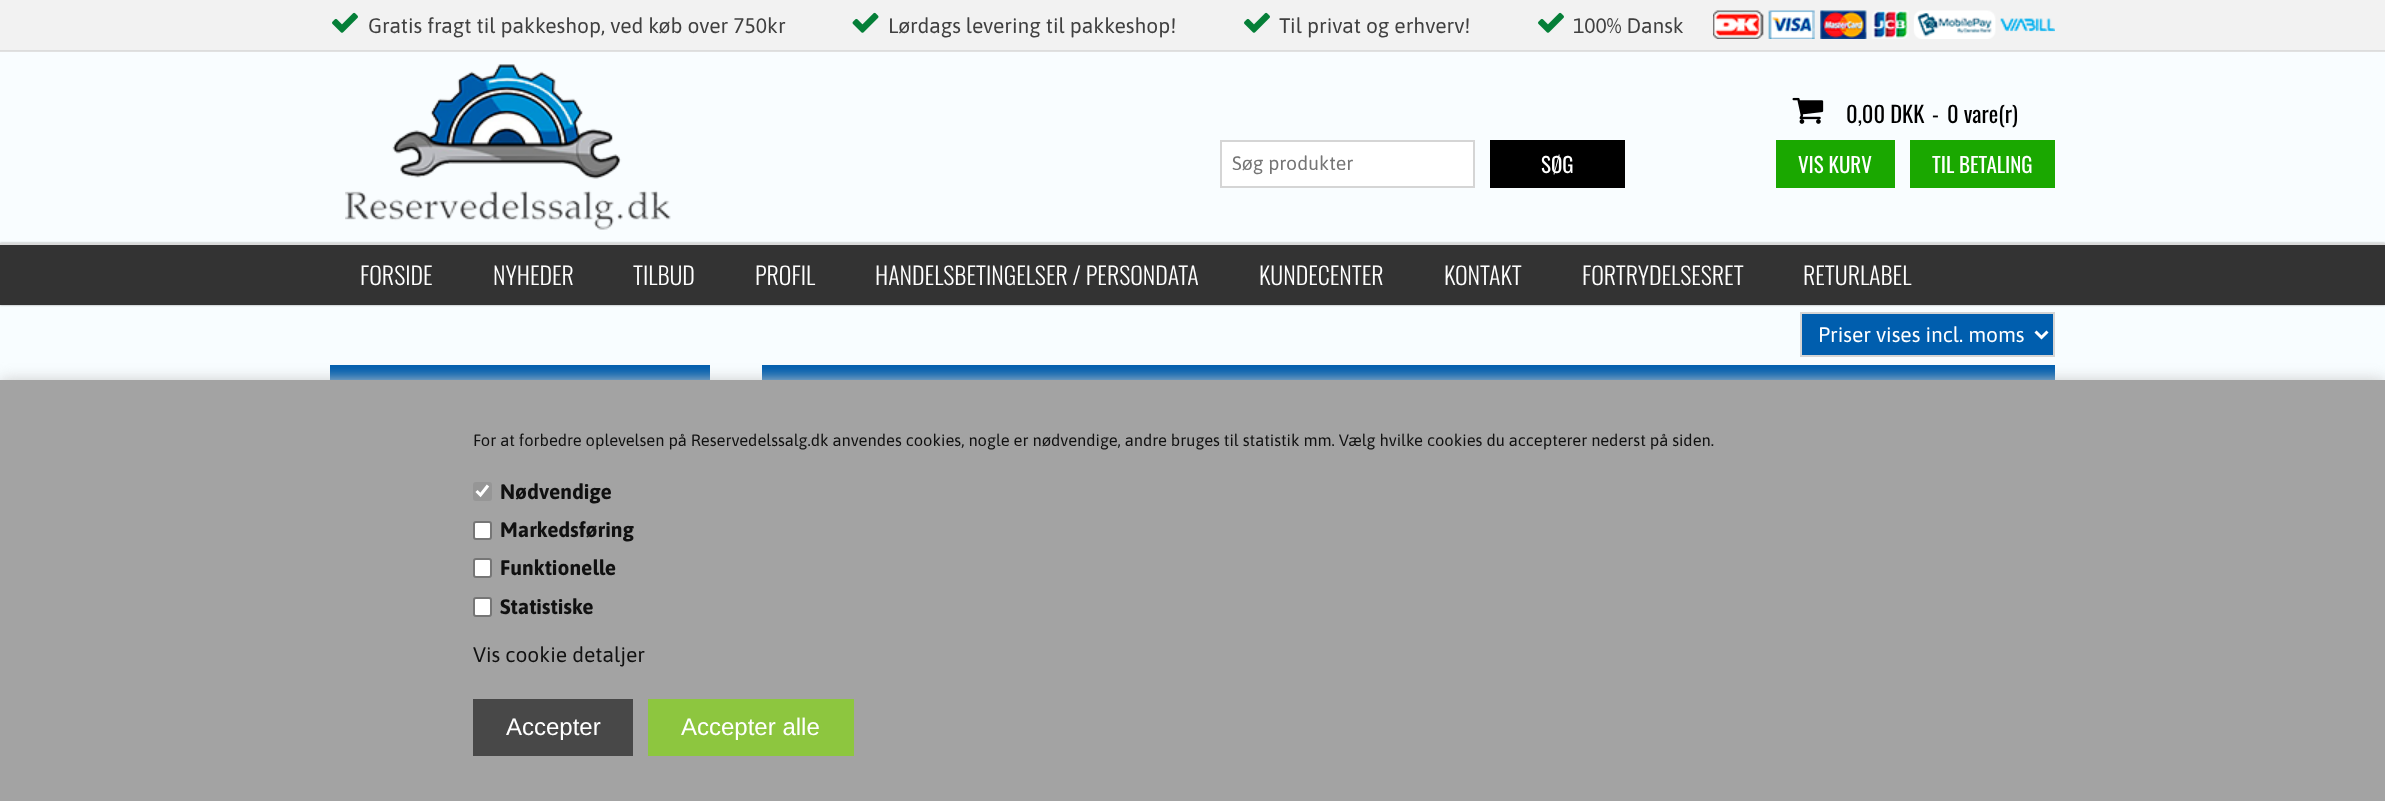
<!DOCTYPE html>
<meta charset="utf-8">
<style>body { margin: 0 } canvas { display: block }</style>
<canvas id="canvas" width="2385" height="801"></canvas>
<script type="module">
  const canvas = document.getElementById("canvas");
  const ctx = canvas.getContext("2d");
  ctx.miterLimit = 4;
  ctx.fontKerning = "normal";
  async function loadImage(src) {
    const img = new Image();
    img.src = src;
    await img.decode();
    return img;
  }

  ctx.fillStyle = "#f8fdff";
  ctx.fillRect(0, 0, 2385, 801);
  ctx.fillStyle = "#f2f2f2";
  ctx.fillRect(0, 0, 2385, 50);
  ctx.fillStyle = "#dddddd";
  ctx.fillRect(0, 50, 2385, 2);
  ctx.drawImage(await loadImage("img1.png"), 332, 12, 26, 21);
  ctx.font = "21px Asap";
  ctx.fillStyle = "#404040";
  ctx.fillText("Gratis fragt til pakkeshop, ved køb over 750kr", 368, 33);
  ctx.drawImage(await loadImage("img2.png"), 852, 12, 27, 21);
  ctx.fillText("Lørdags levering til pakkeshop!", 888, 33);
  ctx.drawImage(await loadImage("img1.png"), 1244, 12, 26, 21);
  ctx.fillText("Til privat og erhverv!", 1279, 33);
  ctx.drawImage(await loadImage("img1.png"), 1538, 12, 26, 21);
  ctx.fillText("100% Dansk", 1573, 33);
  ctx.drawImage(await loadImage("img3.png"), 1713, 10, 342, 29);
  ctx.fillStyle = "rgba(0, 0, 0, 0.4)";
  ctx.filter = "blur(1px)";
  ctx.beginPath();
  ctx.rect(0, 243, 2385, 62);
  ctx.fill();
  ctx.filter = "none";
  ctx.fillStyle = "rgba(255, 255, 255, 0.14)";
  ctx.fillRect(0, 51, 2385, 192);
  ctx.drawImage(await loadImage("img4.png"), 345, 64, 326, 166);
  ctx.drawImage(await loadImage("img5.png"), 1792, 97, 32, 27);
  ctx.font = "22.5px Oswald";
  ctx.fillStyle = "#000000";
  ctx.fillText("0,00 DKK", 1846, 123);
  ctx.fillText("-", 1932, 123);
  ctx.fillText("0 vare(r)", 1947, 123);
  ctx.fillStyle = "#1aa800";
  ctx.fillRect(1776, 140, 119, 48);
  ctx.font = "21px Oswald";
  ctx.fillStyle = "#ffffff";
  ctx.fillText("VIS KURV", 1798, 173);
  ctx.fillStyle = "#1aa800";
  ctx.fillRect(1910, 140, 145, 48);
  ctx.fillStyle = "#ffffff";
  ctx.fillText("TIL BETALING", 1932, 173);
  ctx.beginPath();
  ctx.rect(1221, 141, 253, 46);
  ctx.fill();
  ctx.strokeStyle = "#d5d5d5";
  ctx.lineWidth = 2;
  ctx.stroke();
  ctx.font = "19.5px Asap";
  ctx.fillStyle = "#757575";
  ctx.fillText("Søg produkter", 1232, 170);
  ctx.fillStyle = "#000000";
  ctx.fillRect(1490, 140, 135, 48);
  ctx.font = "21px Oswald";
  ctx.fillStyle = "#ffffff";
  ctx.fillText("SØG", 1541, 173);
  ctx.fillStyle = "#005eae";
  ctx.beginPath();
  ctx.rect(1801, 313, 253, 43);
  ctx.fill();
  ctx.stroke();
  ctx.beginPath();
  ctx.moveTo(2035.5, 331.5);
  ctx.lineTo(2041.5, 337.5);
  ctx.lineTo(2047.5, 331.5);
  ctx.strokeStyle = "#ffffff";
  ctx.lineWidth = 3;
  ctx.stroke();
  ctx.font = "21px Asap";
  ctx.fillStyle = "#ffffff";
  ctx.fillText("Priser vises incl. moms", 1818, 342);
  ctx.fillStyle = "#005eae";
  ctx.fillRect(330, 365, 380, 15);
  ctx.fillRect(762, 365, 1293, 15);
  ctx.fillStyle = "#333333";
  ctx.fillRect(0, 245, 2385, 60);
  ctx.fillStyle = "#dadada";
  ctx.fillRect(0, 243, 2385, 2);
  ctx.font = "300 24px Oswald";
  ctx.fillStyle = "#ffffff";
  ctx.fillText("FORSIDE", 360, 285);
  ctx.fillText("NYHEDER", 493, 285);
  ctx.fillText("TILBUD", 633, 285);
  ctx.fillText("PROFIL", 755, 285);
  ctx.fillText("HANDELSBETINGELSER / PERSONDATA", 875, 285);
  ctx.fillText("KUNDECENTER", 1259, 285);
  ctx.fillText("KONTAKT", 1444, 285);
  ctx.fillText("FORTRYDELSESRET", 1582, 285);
  ctx.fillText("RETURLABEL", 1803, 285);
  ctx.fillStyle = "#cccccc";
  ctx.filter = "blur(7.5px)";
  ctx.beginPath();
  ctx.rect(0, 380, 2385, 421);
  ctx.fill();
  ctx.filter = "none";
  ctx.fillStyle = "#a3a3a3";
  ctx.fillRect(0, 380, 2385, 421);
  ctx.font = "16.5px Asap";
  ctx.fillStyle = "#111111";
  ctx.fillText("For at forbedre oplevelsen på Reservedelssalg.dk anvendes cookies, nogle er nødvendige, andre bruges til statistik mm. Vælg hvilke cookies du accepterer nederst på siden.", 473, 446);
  ctx.fillStyle = "#969696";
  ctx.beginPath();
  ctx.roundRect(473, 482, 19, 19, 3);
  ctx.fill();
  ctx.beginPath();
  ctx.moveTo(476.5, 491);
  ctx.lineTo(480.5, 495);
  ctx.lineTo(488, 485.5);
  ctx.lineWidth = 3.1;
  ctx.stroke();
  ctx.font = "bold 21px Asap";
  ctx.fillStyle = "#111111";
  ctx.fillText("Nødvendige", 500, 499);
  ctx.fillStyle = "#ffffff";
  ctx.beginPath();
  ctx.roundRect(474, 522, 17, 17, 2);
  ctx.fill();
  ctx.strokeStyle = "#767676";
  ctx.lineWidth = 2;
  ctx.stroke();
  ctx.fillStyle = "#111111";
  ctx.fillText("Markedsføring", 500, 537);
  ctx.fillStyle = "#ffffff";
  ctx.beginPath();
  ctx.roundRect(474, 559, 17, 18, 2);
  ctx.fill();
  ctx.stroke();
  ctx.fillStyle = "#111111";
  ctx.fillText("Funktionelle", 500, 575);
  ctx.fillStyle = "#ffffff";
  ctx.beginPath();
  ctx.roundRect(474, 598, 17, 18, 2);
  ctx.fill();
  ctx.stroke();
  ctx.fillStyle = "#111111";
  ctx.fillText("Statistiske", 500, 614);
  ctx.font = "21px Asap";
  ctx.fillText("Vis cookie detaljer", 473, 662);
  ctx.fillStyle = "#484848";
  ctx.fillRect(473, 699, 160, 57);
  ctx.font = "24px Liberation Sans";
  ctx.fillStyle = "#ffffff";
  ctx.fillText("Accepter", 506, 735);
  ctx.fillStyle = "#8dc63f";
  ctx.fillRect(648, 699, 206, 57);
  ctx.fillStyle = "#ffffff";
  ctx.fillText("Accepter alle", 681, 735);
</script>
